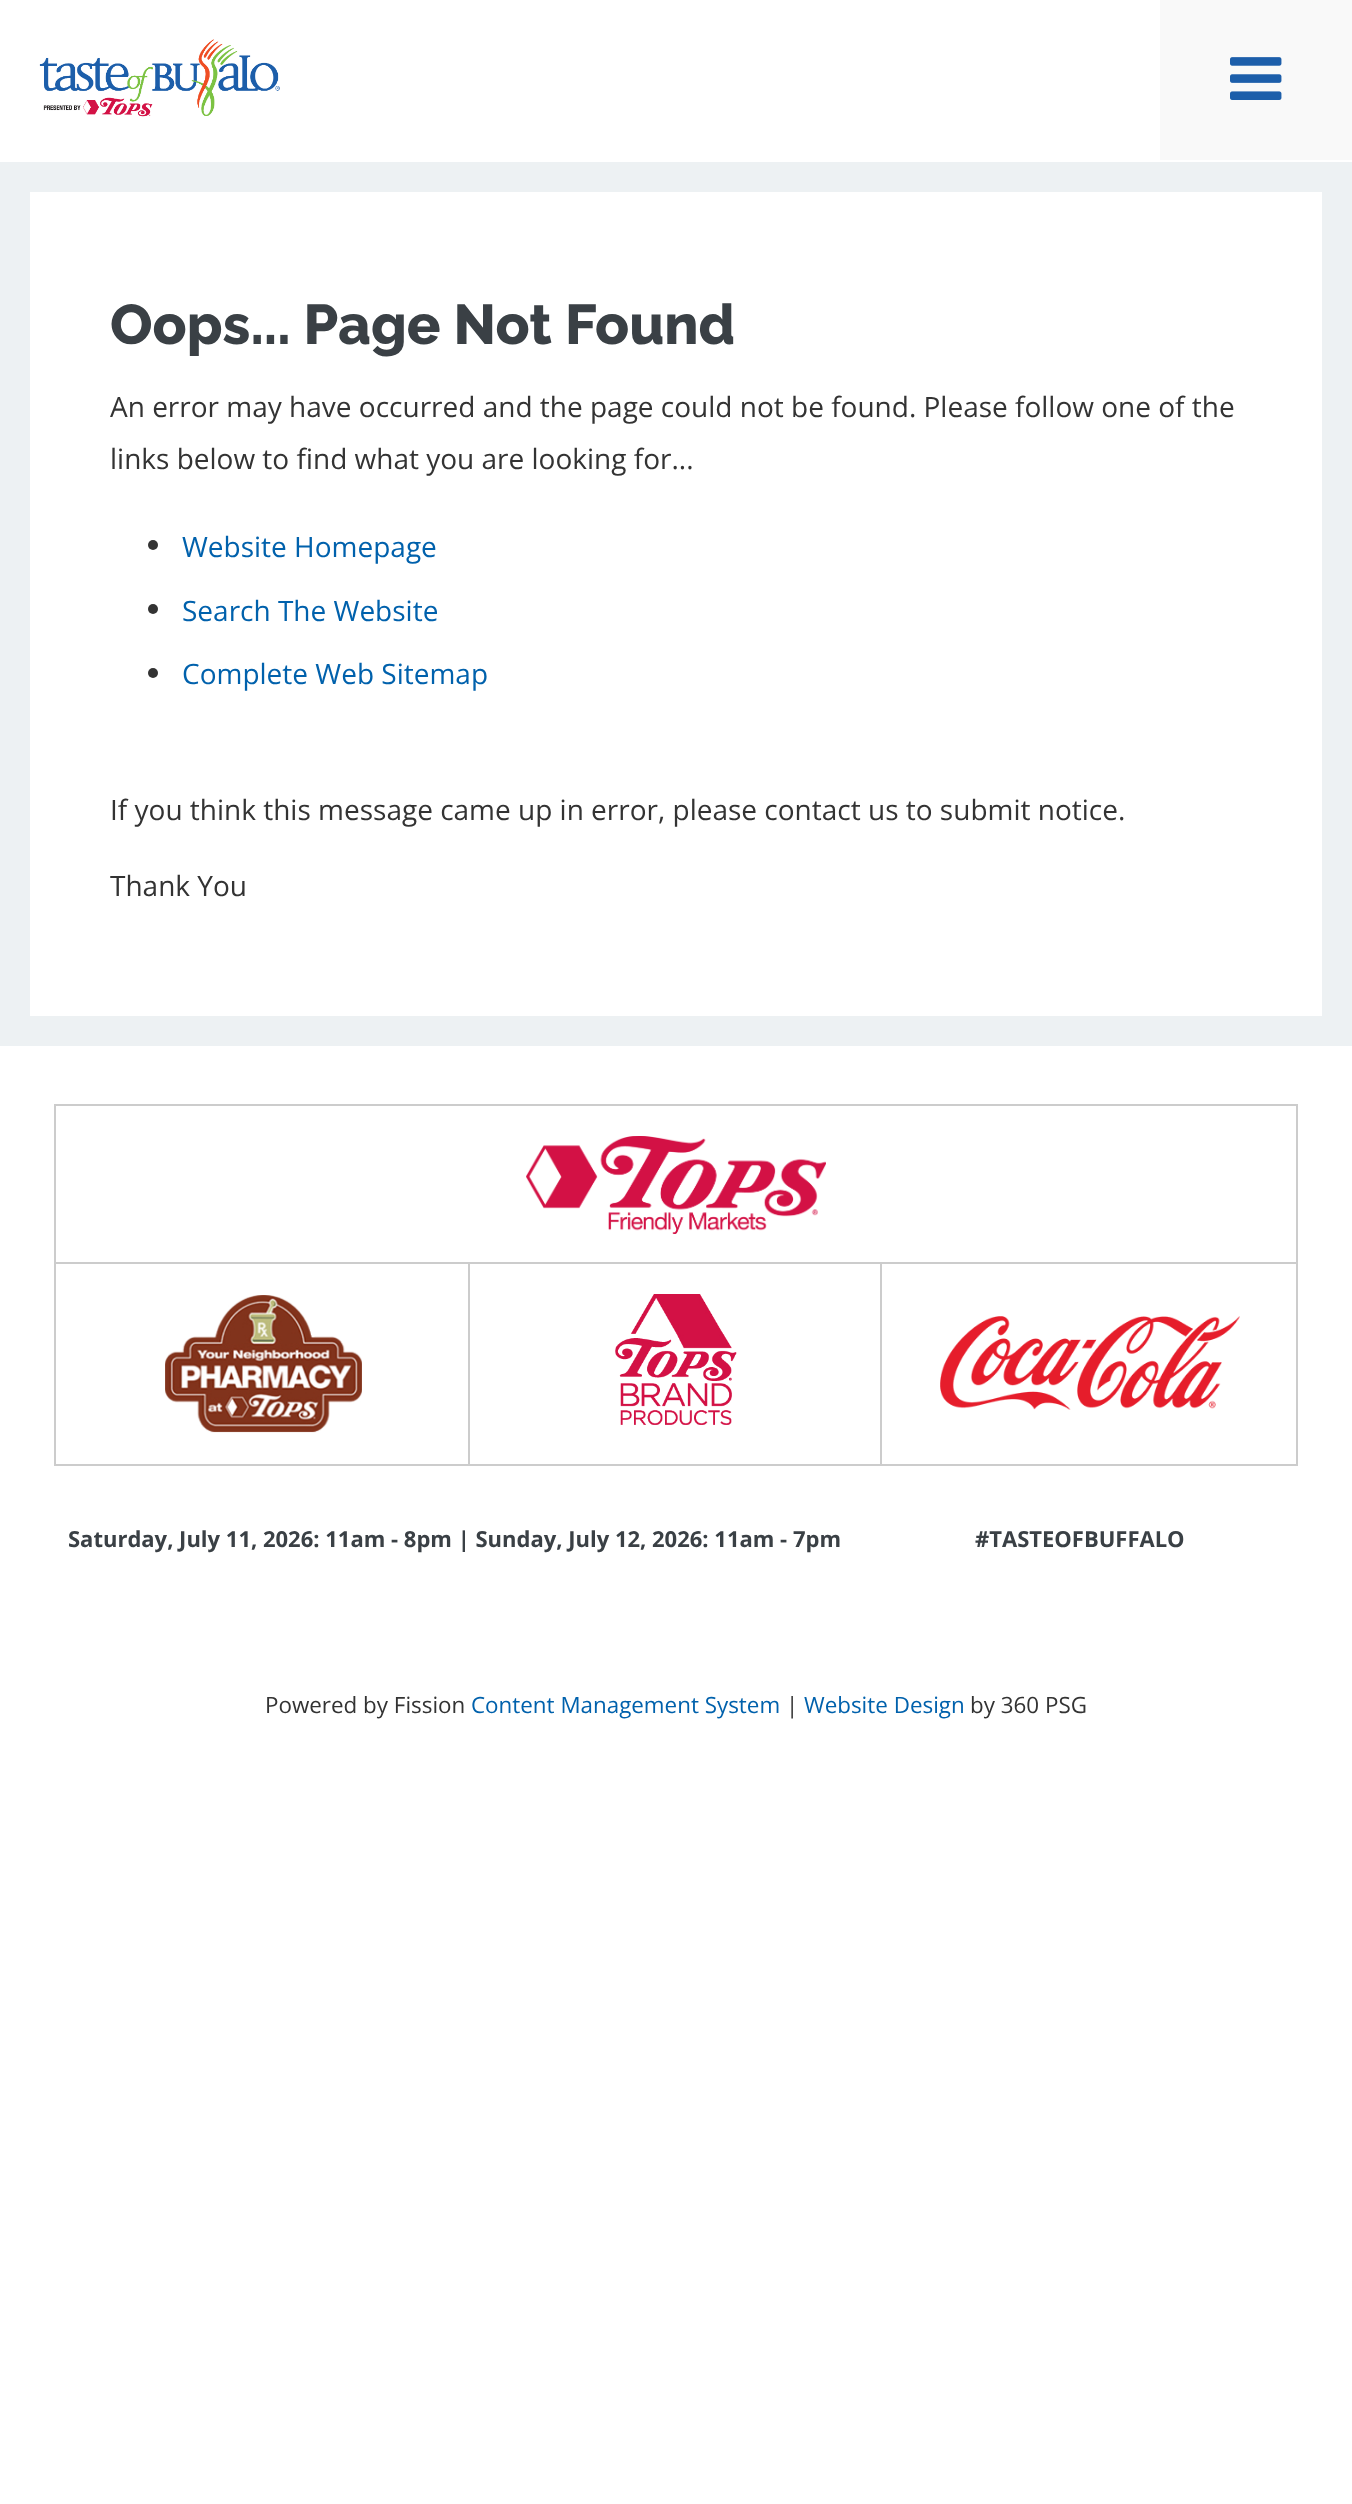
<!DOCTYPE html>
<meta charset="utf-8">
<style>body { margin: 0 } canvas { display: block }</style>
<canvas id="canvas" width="1352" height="2504"></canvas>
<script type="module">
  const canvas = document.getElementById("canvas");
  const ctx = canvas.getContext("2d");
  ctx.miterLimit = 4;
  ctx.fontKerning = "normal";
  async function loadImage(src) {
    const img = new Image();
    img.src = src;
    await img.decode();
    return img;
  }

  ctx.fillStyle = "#ffffff";
  ctx.fillRect(0, 0, 1352, 2504);
  ctx.drawImage(await loadImage("img1.png"), 39, 39, 241, 78);
  ctx.fillStyle = "#f9f9f9";
  ctx.fillRect(1160, 0, 192, 160);
  ctx.drawImage(await loadImage("img2.png"), 1230, 57, 52, 43);
  ctx.fillStyle = "#edf1f3";
  ctx.fillRect(0, 162, 1352, 884);
  ctx.fillStyle = "#ffffff";
  ctx.fillRect(30, 192, 1292, 824);
  ctx.font = "800 56px Raleway";
  ctx.fillStyle = "#3a4045";
  ctx.fillText("Oops... Page Not Found", 110, 344);
  ctx.font = "28px Open Sans";
  ctx.fillStyle = "#333333";
  ctx.fillText("An error may have occurred and the page could not be found. Please follow one of the", 110, 417);
  ctx.fillText("links below to find what you are looking for...", 110, 469);
  ctx.beginPath();
  ctx.arc(153, 545, 5, 0, Math.PI * 2);
  ctx.fill();
  ctx.fillStyle = "#0061ac";
  ctx.fillText("Website Homepage", 182, 557);
  ctx.fillStyle = "#333333";
  ctx.beginPath();
  ctx.arc(153, 609, 5, 0, Math.PI * 2);
  ctx.fill();
  ctx.fillStyle = "#0061ac";
  ctx.fillText("Search The Website", 182, 621);
  ctx.fillStyle = "#333333";
  ctx.beginPath();
  ctx.arc(153, 673, 5, 0, Math.PI * 2);
  ctx.fill();
  ctx.fillStyle = "#0061ac";
  ctx.fillText("Complete Web Sitemap", 182, 684);
  ctx.fillStyle = "#333333";
  ctx.fillText("If you think this message came up in error, please contact us to submit notice.", 110, 820);
  ctx.fillText("Thank You", 110, 896);
  ctx.drawImage(await loadImage("img3.png"), 526, 1136, 300, 98);
  ctx.strokeStyle = "#cccccc";
  ctx.lineWidth = 2;
  ctx.strokeRect(55, 1105, 1242, 160);
  ctx.fillStyle = "#ffffff";
  ctx.fillRect(56, 1264, 412, 2);
  ctx.drawImage(await loadImage("img4.png"), 165, 1295, 197, 138);
  ctx.strokeRect(55, 1263, 416, 202);
  ctx.fillRect(470, 1264, 410, 200);
  ctx.drawImage(await loadImage("img5.png"), 615, 1294, 122, 131);
  ctx.strokeRect(469, 1263, 414, 202);
  ctx.fillRect(882, 1264, 414, 200);
  ctx.drawImage(await loadImage("img6.png"), 940, 1316, 300, 94);
  ctx.strokeRect(881, 1263, 416, 202);
  ctx.font = "bold 22px Open Sans";
  ctx.fillStyle = "#3a4045";
  ctx.fillText("Saturday, July 11, 2026: 11am - 8pm | Sunday, July 12, 2026: 11am - 7pm", 68, 1547);
  ctx.fillText("#TASTEOFBUFFALO", 975, 1547);
  ctx.font = "22.4px Open Sans";
  ctx.fillStyle = "#333333";
  ctx.fillText("Powered by Fission", 265, 1713);
  ctx.fillStyle = "#0061ac";
  ctx.fillText("Content Management System", 471, 1713);
  ctx.fillStyle = "#333333";
  ctx.fillText("|", 786, 1713);
  ctx.fillStyle = "#0061ac";
  ctx.fillText("Website Design", 804, 1713);
  ctx.fillStyle = "#333333";
  ctx.fillText("by 360 PSG", 970, 1713);
</script>
